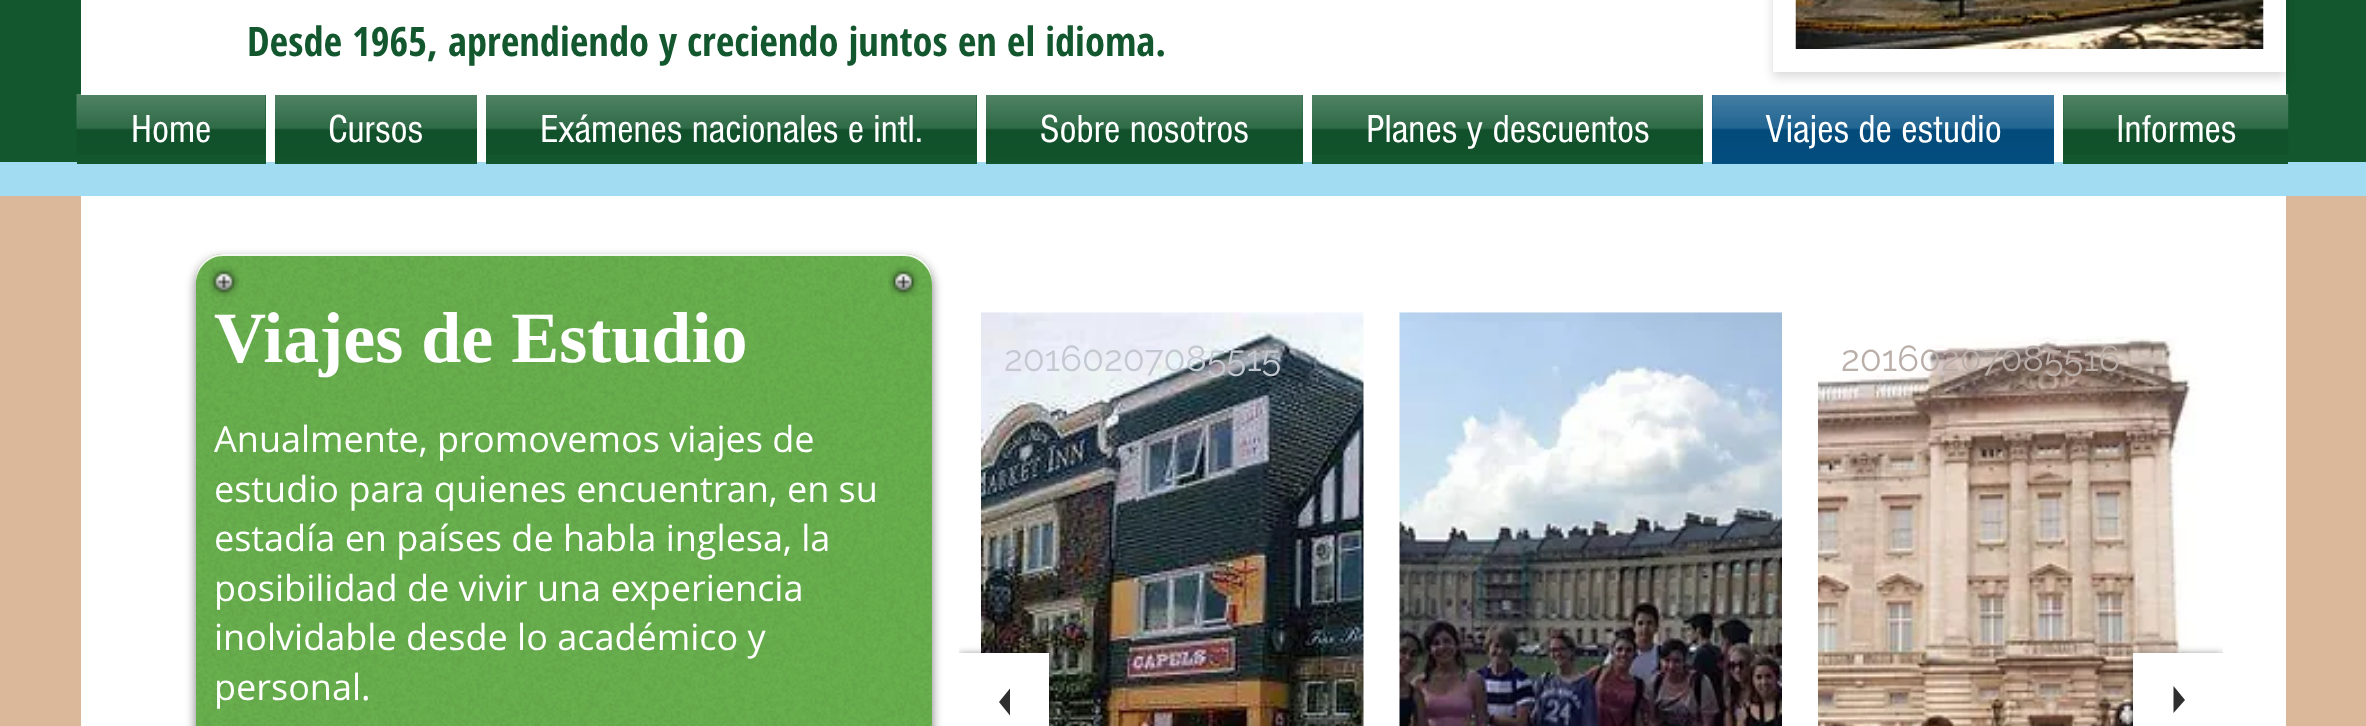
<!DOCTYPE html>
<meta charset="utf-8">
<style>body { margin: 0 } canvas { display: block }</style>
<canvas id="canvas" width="2366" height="726"></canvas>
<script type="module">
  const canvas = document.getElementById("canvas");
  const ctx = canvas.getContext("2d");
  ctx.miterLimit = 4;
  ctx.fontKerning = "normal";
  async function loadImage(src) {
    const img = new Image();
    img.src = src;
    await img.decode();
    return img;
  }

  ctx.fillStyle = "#dbb89a";
  ctx.fillRect(0, 0, 2366, 726);
  ctx.fillStyle = "#13572e";
  ctx.fillRect(0, 0, 2366, 162);
  ctx.fillStyle = "#a1dcf2";
  ctx.fillRect(0, 162, 2366, 34);
  ctx.fillStyle = "#ffffff";
  ctx.fillRect(81, 0, 2205, 162);
  ctx.font = "bold 40.5px Open Sans Condensed";
  ctx.fillStyle = "#13572e";
  ctx.fillText("Desde 1965, aprendiendo y creciendo juntos en el idioma.", 247, 56);
  ctx.save();
  ctx.beginPath();
  ctx.moveTo(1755, 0);
  ctx.lineTo(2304, 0);
  ctx.lineTo(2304, 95);
  ctx.lineTo(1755, 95);
  ctx.closePath();
  ctx.moveTo(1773, -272);
  ctx.lineTo(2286, -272);
  ctx.lineTo(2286, 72);
  ctx.lineTo(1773, 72);
  ctx.closePath();
  ctx.clip("evenodd");
  ctx.fillStyle = "rgba(0, 0, 0, 0.15)";
  ctx.filter = "blur(5.5px)";
  ctx.beginPath();
  ctx.rect(1773, -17, 513, 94);
  ctx.fill();
  ctx.filter = "none";
  ctx.restore();
  ctx.drawImage(await loadImage("img1.png"), 1795, 0, 469, 49);
  ctx.fillRect(77, 95, 189, 69);
  ctx.drawImage(await loadImage("img2.png"), 76, 94, 190, 61);
  ctx.font = "40.5px 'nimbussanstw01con'";
  ctx.fillStyle = "#ffffff";
  ctx.fillText("Home", 131, 142);
  ctx.fillStyle = "#13572e";
  ctx.fillRect(275, 95, 202, 69);
  ctx.drawImage(await loadImage("img3.png"), 274, 95, 203, 67);
  ctx.fillStyle = "#ffffff";
  ctx.fillText("Cursos", 328, 142);
  ctx.fillStyle = "#13572e";
  ctx.fillRect(486, 95, 491, 69);
  ctx.drawImage(await loadImage("img4.png"), 486, 95, 491, 60);
  ctx.fillStyle = "#ffffff";
  ctx.fillText("Exámenes nacionales e intl.", 540, 142);
  ctx.fillStyle = "#13572e";
  ctx.fillRect(986, 95, 317, 69);
  ctx.drawImage(await loadImage("img5.png"), 985, 95, 318, 67);
  ctx.fillStyle = "#ffffff";
  ctx.fillText("Sobre nosotros", 1040, 142);
  ctx.fillStyle = "#13572e";
  ctx.fillRect(1312, 95, 391, 69);
  ctx.drawImage(await loadImage("img6.png"), 1312, 95, 391, 60);
  ctx.fillStyle = "#ffffff";
  ctx.fillText("Planes y descuentos", 1366, 142);
  ctx.fillStyle = "#045184";
  ctx.fillRect(1712, 95, 342, 69);
  ctx.drawImage(await loadImage("img7.png"), 1712, 95, 342, 68);
  ctx.fillStyle = "#ffffff";
  ctx.fillText("Viajes de estudio", 1765, 142);
  ctx.fillStyle = "#13572e";
  ctx.fillRect(2063, 95, 225, 69);
  ctx.drawImage(await loadImage("img8.png"), 2063, 94, 226, 61);
  ctx.fillStyle = "#ffffff";
  ctx.fillText("Informes", 2116, 142);
  ctx.fillRect(81, 196, 2205, 530);
  ctx.fillStyle = "rgba(0, 0, 0, 0.53)";
  ctx.filter = "blur(5.5px)";
  ctx.beginPath();
  ctx.roundRect(196, 259, 736, 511, 27);
  ctx.fill();
  ctx.filter = "none";
  ctx.fillStyle = "#68b04d";
  ctx.beginPath();
  ctx.roundRect(196, 254, 736, 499, 27);
  ctx.fill();
  ctx.drawImage(await loadImage("img9.png"), 196, 254, 735, 472);
  ctx.fillStyle = "rgba(255, 255, 255, 0.92)";
  ctx.beginPath();
  ctx.moveTo(223, 256);
  ctx.lineTo(904, 256);
  ctx.bezierCurveTo(919, 256, 932, 269, 932, 284);
  ctx.lineTo(932, 281);
  ctx.bezierCurveTo(932, 266, 920, 254, 905, 254);
  ctx.lineTo(223, 254);
  ctx.bezierCurveTo(208, 254, 196, 266, 196, 281);
  ctx.lineTo(196, 284);
  ctx.bezierCurveTo(196, 269, 208, 256, 223, 256);
  ctx.closePath();
  ctx.fill();
  ctx.drawImage(await loadImage("img10.png"), 208, 266, 31, 31);
  ctx.drawImage(await loadImage("img11.png"), 888, 266, 31, 31);
  ctx.font = "bold 72px Liberation Serif";
  ctx.fillStyle = "#ffffff";
  ctx.fillText("Viajes de Estudio", 214, 362);
  ctx.font = "36px Open Sans";
  ctx.fillText("Anualmente, promovemos viajes de", 214, 452);
  ctx.fillText("estudio para quienes encuentran, en su", 214, 502);
  ctx.fillText("estadía en países de habla inglesa, la", 214, 551);
  ctx.fillText("posibilidad de vivir una experiencia", 214, 601);
  ctx.fillText("inolvidable desde lo académico y", 214, 650);
  ctx.fillText("personal.", 214, 700);
  ctx.drawImage(await loadImage("img12.png"), 981, 312, 383, 414);
  ctx.font = "36px Raleway";
  ctx.fillStyle = "#c4c9d1";
  ctx.fillText("20160207085515", 1004, 371);
  ctx.drawImage(await loadImage("img13.png"), 1399, 312, 383, 414);
  ctx.drawImage(await loadImage("img14.png"), 1818, 336, 383, 390);
  ctx.fillStyle = "#baaea9";
  ctx.fillText("20160207085516", 1841, 371);
  ctx.save();
  ctx.beginPath();
  ctx.rect(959, 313, 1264, 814);
  ctx.clip();
  ctx.fillStyle = "rgba(0, 0, 0, 0.6)";
  ctx.filter = "blur(4.5px)";
  ctx.beginPath();
  ctx.rect(959, 655, 90, 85);
  ctx.fill();
  ctx.filter = "none";
  ctx.restore();
  ctx.fillStyle = "#ffffff";
  ctx.fillRect(959, 653, 90, 73);
  ctx.fillStyle = "#2f2e2e";
  ctx.beginPath();
  ctx.moveTo(1010, 688.5);
  ctx.lineTo(1010, 715.5);
  ctx.lineTo(999, 702);
  ctx.closePath();
  ctx.fill();
  ctx.save();
  ctx.beginPath();
  ctx.rect(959, 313, 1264, 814);
  ctx.clip();
  ctx.fillStyle = "rgba(0, 0, 0, 0.6)";
  ctx.filter = "blur(4.5px)";
  ctx.beginPath();
  ctx.rect(2133, 655, 90, 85);
  ctx.fill();
  ctx.filter = "none";
  ctx.restore();
  ctx.fillStyle = "#ffffff";
  ctx.fillRect(2133, 653, 90, 73);
  ctx.fillStyle = "#2f2e2e";
  ctx.beginPath();
  ctx.moveTo(2173.5, 713);
  ctx.lineTo(2173.5, 686);
  ctx.lineTo(2185, 700);
  ctx.closePath();
  ctx.fill();
</script>
